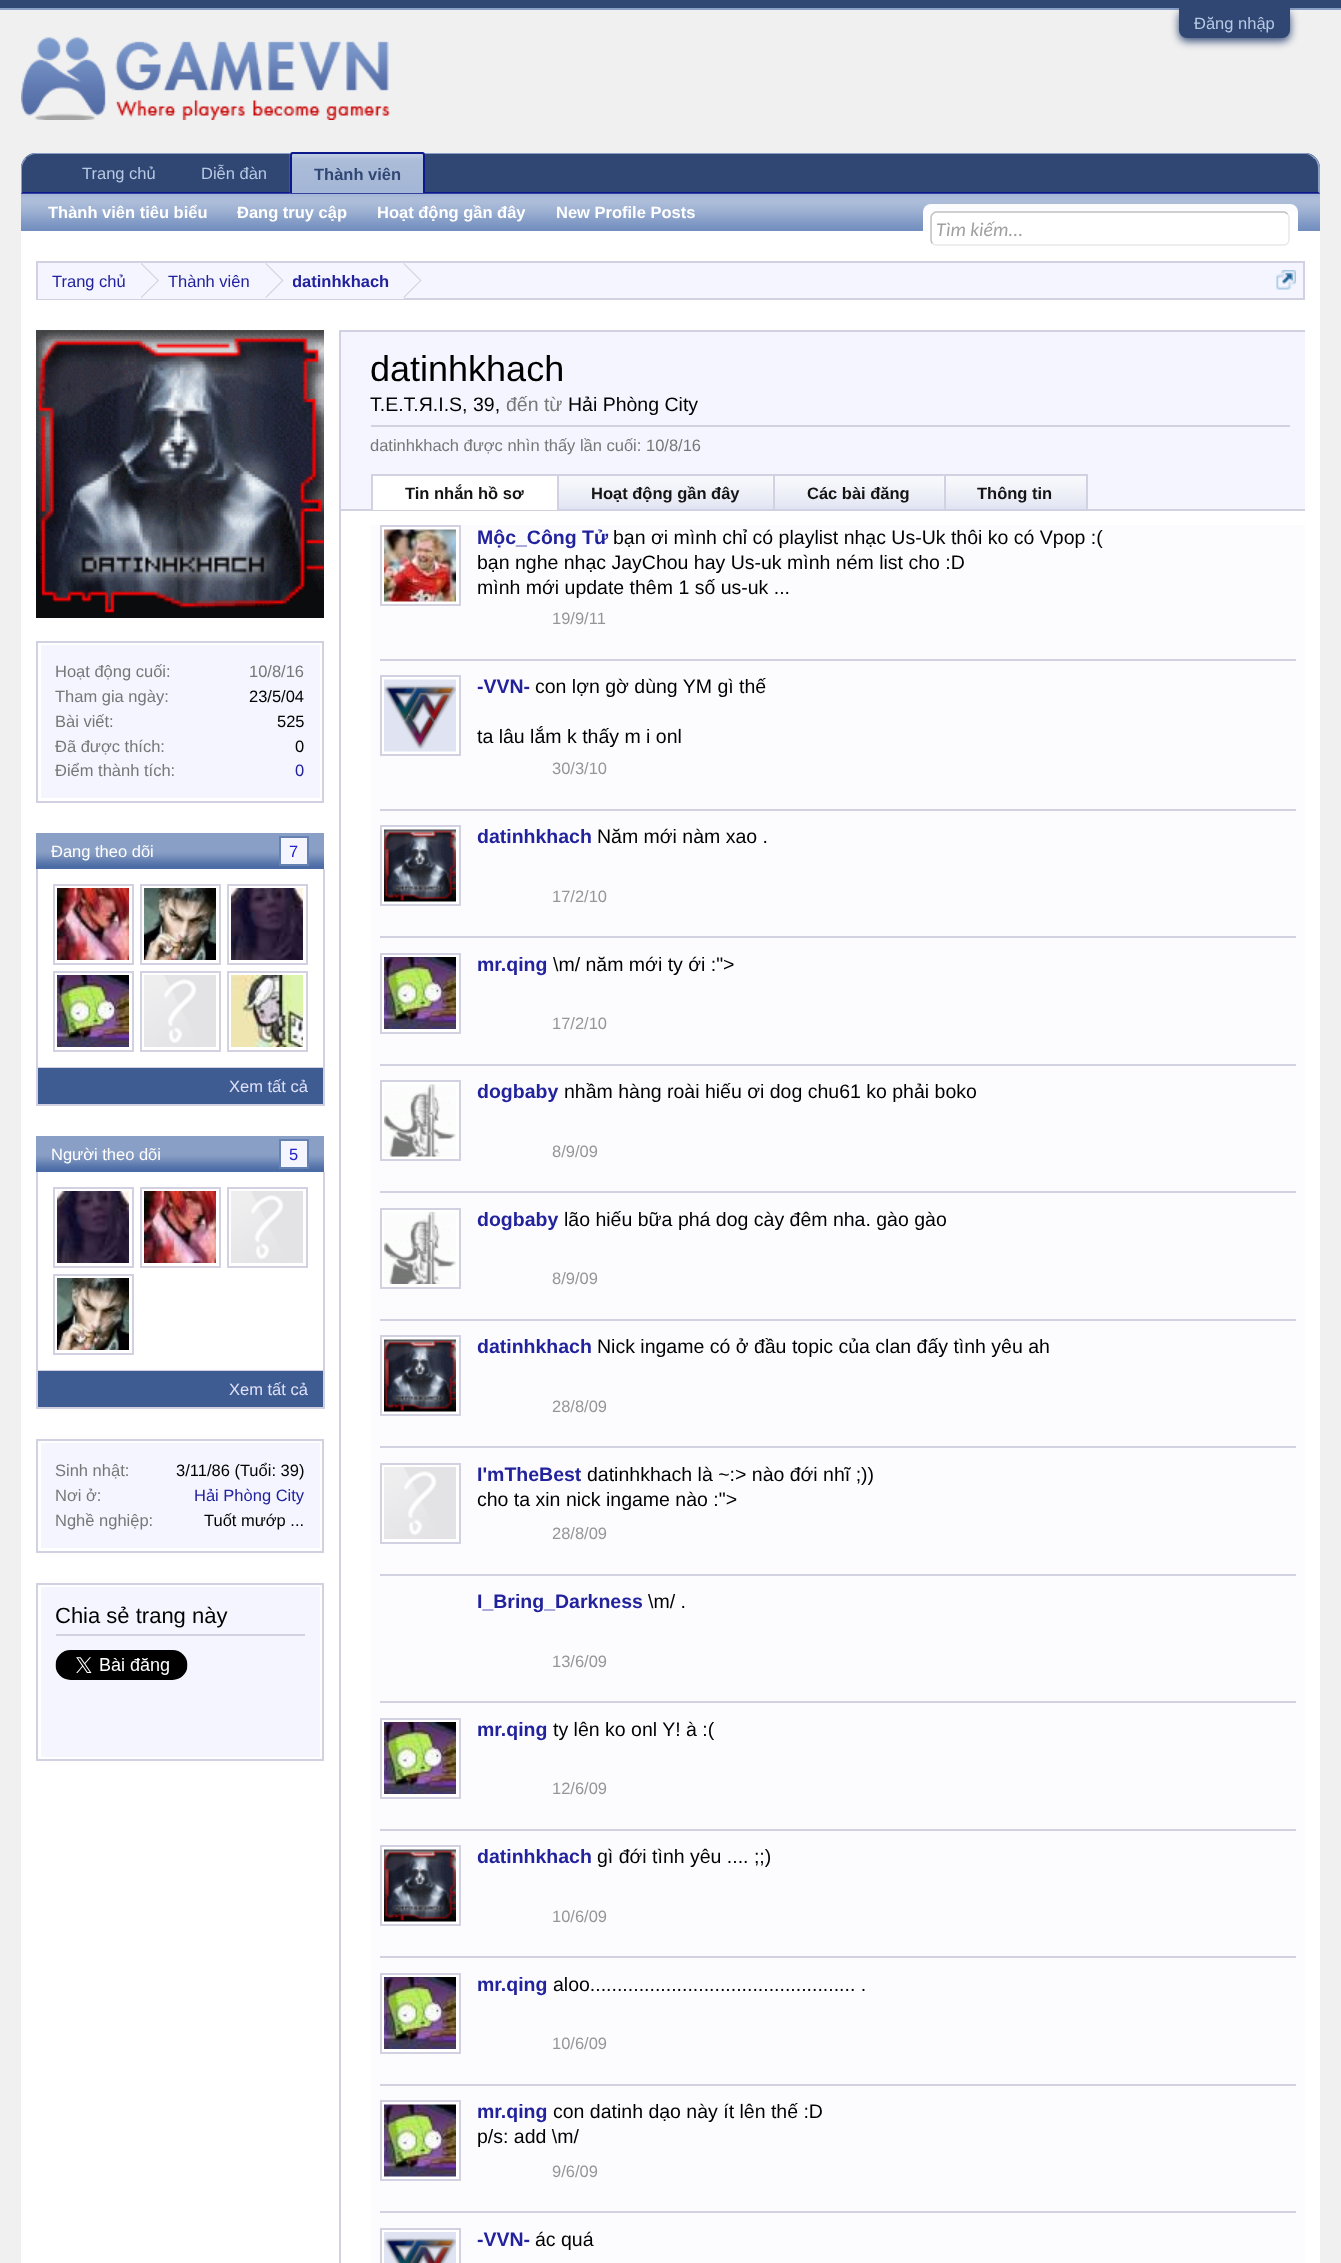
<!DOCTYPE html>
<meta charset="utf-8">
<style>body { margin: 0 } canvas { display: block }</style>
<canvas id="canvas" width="1341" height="2263"></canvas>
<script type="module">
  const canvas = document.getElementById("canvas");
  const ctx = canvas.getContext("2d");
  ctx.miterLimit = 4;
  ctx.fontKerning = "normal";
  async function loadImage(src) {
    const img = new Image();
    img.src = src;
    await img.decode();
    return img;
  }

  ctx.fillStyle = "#f0f0f0";
  ctx.fillRect(0, 0, 1341, 2263);
  ctx.fillStyle = "#304774";
  ctx.fillRect(0, 0, 1341, 8);
  ctx.fillStyle = "#899fc5";
  ctx.fillRect(0, 8, 1341, 2);
  ctx.fillStyle = "#304774";
  ctx.filter = "blur(4px)";
  ctx.beginPath();
  ctx.roundRect(1179, 11, 111, 30, 8);
  ctx.fill();
  ctx.filter = "none";
  ctx.beginPath();
  ctx.roundRect(1179, 8, 111, 30, [0, 0, 8, 8]);
  ctx.fill();
  ctx.font = "16.5px Liberation Sans";
  ctx.fillStyle = "#b8c9e3";
  ctx.fillText("Đăng nhập", 1194, 29);
  ctx.drawImage(await loadImage("img1.png"), 21, 37, 369, 83);
  ctx.fillStyle = "#304774";
  ctx.beginPath();
  ctx.roundRect(21, 153, 1299, 41, [15, 15, 0, 0]);
  ctx.fill();
  ctx.fillStyle = "#899fc5";
  ctx.beginPath();
  ctx.moveTo(36, 153);
  ctx.bezierCurveTo(32, 153, 28, 155, 26, 158);
  ctx.bezierCurveTo(29, 156, 32, 154, 36, 154);
  ctx.lineTo(1305, 154);
  ctx.bezierCurveTo(1309, 154, 1312, 156, 1314, 159);
  ctx.lineTo(1316, 158);
  ctx.bezierCurveTo(1313, 155, 1309, 153, 1305, 153);
  ctx.closePath();
  ctx.fill();
  ctx.beginPath();
  ctx.moveTo(1320, 193.5);
  ctx.lineTo(1320, 168);
  ctx.bezierCurveTo(1320, 164, 1318, 160, 1315.5, 157.5);
  ctx.lineTo(1314.5, 158.5);
  ctx.bezierCurveTo(1316.5, 161, 1318, 164.5, 1318, 168);
  ctx.lineTo(1318, 191.5);
  ctx.closePath();
  ctx.fill();
  ctx.fillStyle = "#0b198c";
  ctx.beginPath();
  ctx.moveTo(1320, 194);
  ctx.lineTo(21, 194);
  ctx.lineTo(22, 192);
  ctx.lineTo(1318, 192);
  ctx.closePath();
  ctx.fill();
  ctx.fillStyle = "#899fc5";
  ctx.beginPath();
  ctx.moveTo(21, 193.5);
  ctx.lineTo(22.5, 192);
  ctx.lineTo(22, 192);
  ctx.lineTo(22, 168);
  ctx.bezierCurveTo(22, 164.5, 24, 161, 26.5, 158.5);
  ctx.lineTo(25.5, 157.5);
  ctx.bezierCurveTo(23, 160, 21, 164, 21, 168);
  ctx.closePath();
  ctx.fill();
  ctx.fillStyle = "#b8c9e3";
  ctx.fillText("Trang chủ", 82, 179);
  ctx.fillText("Diễn đàn", 201, 179);
  ctx.fillStyle = "#738fbf";
  ctx.beginPath();
  ctx.roundRect(290, 152, 135, 43, [3, 3, 0, 0]);
  ctx.fill();
  ctx.drawImage(await loadImage("img2.png"), 289, 153, 136, 41);
  ctx.beginPath();
  ctx.roundRect(291, 153, 133, 41, [2, 2, 0, 0]);
  ctx.strokeStyle = "#0b198c";
  ctx.lineWidth = 2;
  ctx.stroke();
  ctx.font = "bold 16.5px Liberation Sans";
  ctx.fillStyle = "#304774";
  ctx.fillText("Thành viên", 314, 180);
  ctx.fillStyle = "#738fbf";
  ctx.fillRect(21, 194, 1299, 37);
  ctx.drawImage(await loadImage("img3.png"), 21, 193, 1299, 36);
  ctx.fillStyle = "#ffffff";
  ctx.fillText("Thành viên tiêu biểu", 48, 218);
  ctx.fillText("Đang truy cập", 237, 218);
  ctx.fillText("Hoạt động gần đây", 377, 218);
  ctx.fillText("New Profile Posts", 556, 218);
  ctx.fillRect(21, 231, 1299, 2032);
  ctx.fillStyle = "#fcfcff";
  ctx.beginPath();
  ctx.roundRect(923, 204, 375, 42, 8);
  ctx.fill();
  ctx.fillStyle = "#ffffff";
  ctx.fillRect(923, 212, 375, 34);
  ctx.beginPath();
  ctx.moveTo(1287.5, 214);
  ctx.bezierCurveTo(1288.5, 215, 1289, 216, 1289, 217.5);
  ctx.lineTo(1289, 240);
  ctx.bezierCurveTo(1289, 241.5, 1288.5, 242.5, 1287.5, 243.5);
  ctx.bezierCurveTo(1286.5, 244.5, 1285.5, 245, 1284, 245);
  ctx.lineTo(936, 245);
  ctx.bezierCurveTo(934.5, 245, 933.5, 244.5, 932.5, 243.5);
  ctx.strokeStyle = "#e9e9e9";
  ctx.lineWidth = 1.5;
  ctx.stroke();
  ctx.beginPath();
  ctx.moveTo(932.5, 243.5);
  ctx.bezierCurveTo(931.5, 242.5, 931, 241.5, 931, 240);
  ctx.lineTo(931, 217.5);
  ctx.bezierCurveTo(931, 216, 931.5, 215, 932.5, 214);
  ctx.bezierCurveTo(933.5, 213, 934.5, 212, 936, 212);
  ctx.lineTo(1284, 212);
  ctx.bezierCurveTo(1285.5, 212, 1286.5, 213, 1287.5, 214);
  ctx.strokeStyle = "#c0c0c0";
  ctx.stroke();
  ctx.font = "italic 19.5px Carlito";
  ctx.fillStyle = "#a0a0a0";
  ctx.fillText("Tìm kiếm...", 936, 236);
  ctx.fillStyle = "#f5f5ff";
  ctx.fillRect(404, 263, 899, 35);
  ctx.strokeStyle = "#d1d1e1";
  ctx.lineWidth = 2;
  ctx.strokeRect(37, 262, 1267, 37);
  ctx.fillRect(38, 263, 366, 36);
  ctx.font = "16.5px Liberation Sans";
  ctx.fillStyle = "#22229c";
  ctx.fillText("Trang chủ", 52, 287);
  ctx.fillStyle = "#d1d1e1";
  ctx.beginPath();
  ctx.moveTo(141, 298.5);
  ctx.lineTo(141, 262.5);
  ctx.lineTo(159, 280.5);
  ctx.closePath();
  ctx.fill();
  ctx.fillStyle = "#f5f5ff";
  ctx.beginPath();
  ctx.moveTo(139.5, 298.5);
  ctx.lineTo(139.5, 262.5);
  ctx.lineTo(157.5, 280.5);
  ctx.closePath();
  ctx.fill();
  ctx.fillStyle = "#22229c";
  ctx.fillText("Thành viên", 168, 287);
  ctx.fillStyle = "#d1d1e1";
  ctx.beginPath();
  ctx.moveTo(265.5, 298.5);
  ctx.lineTo(265.5, 262.5);
  ctx.lineTo(283.5, 280.5);
  ctx.closePath();
  ctx.fill();
  ctx.fillStyle = "#f5f5ff";
  ctx.beginPath();
  ctx.moveTo(264, 298.5);
  ctx.lineTo(264, 262.5);
  ctx.lineTo(282, 280.5);
  ctx.closePath();
  ctx.fill();
  ctx.save();
  ctx.beginPath();
  ctx.rect(293, 263, 96, 36);
  ctx.clip();
  ctx.font = "bold 16.5px Liberation Sans";
  ctx.fillStyle = "#22229c";
  ctx.fillText("datinhkhach", 292, 287);
  ctx.restore();
  ctx.fillStyle = "#d1d1e1";
  ctx.beginPath();
  ctx.moveTo(403.5, 298.5);
  ctx.lineTo(403.5, 262.5);
  ctx.lineTo(421.5, 280.5);
  ctx.closePath();
  ctx.fill();
  ctx.fillStyle = "#f5f5ff";
  ctx.beginPath();
  ctx.moveTo(402, 298.5);
  ctx.lineTo(402, 262.5);
  ctx.lineTo(420, 280.5);
  ctx.closePath();
  ctx.fill();
  ctx.drawImage(await loadImage("img4.png"), 1276, 270, 20, 20);
  ctx.drawImage(await loadImage("img5.png"), 36, 330, 288, 288);
  ctx.strokeRect(37, 642, 286, 160);
  ctx.fillRect(41, 645, 279, 153);
  ctx.fillStyle = "#777777";
  ctx.fillText("Hoạt động cuối:", 55, 677);
  ctx.fillText("10/8/16", 249, 677);
  ctx.fillText("Tham gia ngày:", 55, 702);
  ctx.fillStyle = "#000000";
  ctx.fillText("23/5/04", 249, 702);
  ctx.fillStyle = "#777777";
  ctx.fillText("Bài viết:", 55, 727);
  ctx.fillStyle = "#000000";
  ctx.fillText("525", 277, 727);
  ctx.fillStyle = "#777777";
  ctx.fillText("Đã được thích:", 55, 752);
  ctx.fillStyle = "#000000";
  ctx.fillText("0", 295, 752);
  ctx.fillStyle = "#777777";
  ctx.fillText("Điểm thành tích:", 55, 776);
  ctx.fillStyle = "#22229c";
  ctx.fillText("0", 295, 776);
  ctx.fillStyle = "#4b6ca6";
  ctx.fillRect(36, 833, 288, 36);
  ctx.drawImage(await loadImage("img6.png"), 36, 833, 288, 33);
  ctx.fillStyle = "#ffffff";
  ctx.fillText("Đang theo dõi", 51, 857);
  ctx.fillStyle = "#f5f5ff";
  ctx.beginPath();
  ctx.rect(280, 837, 28, 28);
  ctx.fill();
  ctx.strokeStyle = "#6682b3";
  ctx.stroke();
  ctx.fillStyle = "#2222c9";
  ctx.fillText("7", 289, 857);
  ctx.fillStyle = "#d1d1e1";
  ctx.fillRect(323, 869, 2, 237);
  ctx.fillRect(36, 1067, 288, 1);
  ctx.fillRect(36, 869, 2, 199);
  ctx.drawImage(await loadImage("img7.png"), 57, 888, 72, 72);
  ctx.strokeStyle = "#d1d1e1";
  ctx.strokeRect(54, 885, 79, 79);
  ctx.drawImage(await loadImage("img8.png"), 144, 888, 72, 72);
  ctx.strokeRect(141, 885, 79, 79);
  ctx.drawImage(await loadImage("img9.png"), 231, 888, 72, 72);
  ctx.strokeRect(228, 885, 79, 79);
  ctx.drawImage(await loadImage("img10.png"), 57, 975, 72, 72);
  ctx.strokeRect(54, 972, 79, 79);
  ctx.drawImage(await loadImage("img11.png"), 144, 975, 72, 72);
  ctx.strokeRect(141, 972, 79, 79);
  ctx.drawImage(await loadImage("img12.png"), 231, 975, 72, 72);
  ctx.strokeRect(228, 972, 79, 79);
  ctx.fillStyle = "#3e5c92";
  ctx.fillRect(38, 1068, 285, 36);
  ctx.fillStyle = "#d1d1e1";
  ctx.fillRect(36, 1104, 288, 2);
  ctx.fillRect(36, 1068, 2, 38);
  ctx.fillStyle = "#e0e0f6";
  ctx.fillText("Xem tất cả", 229, 1092);
  ctx.fillStyle = "#4b6ca6";
  ctx.fillRect(36, 1136, 288, 36);
  ctx.drawImage(await loadImage("img13.png"), 36, 1136, 288, 33);
  ctx.fillStyle = "#ffffff";
  ctx.fillText("Người theo dõi", 51, 1160);
  ctx.fillStyle = "#f5f5ff";
  ctx.beginPath();
  ctx.rect(280, 1140, 28, 28);
  ctx.fill();
  ctx.strokeStyle = "#6682b3";
  ctx.stroke();
  ctx.fillStyle = "#2222c9";
  ctx.fillText("5", 289, 1160);
  ctx.fillStyle = "#d1d1e1";
  ctx.fillRect(323, 1172, 2, 237);
  ctx.fillRect(36, 1370, 288, 1);
  ctx.fillRect(36, 1172, 2, 199);
  ctx.drawImage(await loadImage("img9.png"), 57, 1191, 72, 72);
  ctx.strokeStyle = "#d1d1e1";
  ctx.strokeRect(54, 1188, 79, 79);
  ctx.drawImage(await loadImage("img7.png"), 144, 1191, 72, 72);
  ctx.strokeRect(141, 1188, 79, 79);
  ctx.drawImage(await loadImage("img11.png"), 231, 1191, 72, 72);
  ctx.strokeRect(228, 1188, 79, 79);
  ctx.drawImage(await loadImage("img8.png"), 57, 1278, 72, 72);
  ctx.strokeRect(54, 1275, 79, 79);
  ctx.fillStyle = "#3e5c92";
  ctx.fillRect(38, 1371, 285, 36);
  ctx.fillStyle = "#d1d1e1";
  ctx.fillRect(36, 1407, 288, 2);
  ctx.fillRect(36, 1371, 2, 38);
  ctx.fillStyle = "#e0e0f6";
  ctx.fillText("Xem tất cả", 229, 1395);
  ctx.strokeRect(37, 1440, 286, 112);
  ctx.fillStyle = "#f5f5ff";
  ctx.fillRect(41, 1443, 279, 105);
  ctx.fillStyle = "#777777";
  ctx.fillText("Sinh nhật:", 55, 1476);
  ctx.fillStyle = "#000000";
  ctx.fillText("3/11/86 (Tuổi: 39)", 176, 1476);
  ctx.fillStyle = "#777777";
  ctx.fillText("Nơi ở:", 55, 1501);
  ctx.fillStyle = "#22229c";
  ctx.fillText("Hải Phòng City", 194, 1501);
  ctx.fillStyle = "#777777";
  ctx.fillText("Nghề nghiệp:", 55, 1526);
  ctx.fillStyle = "#000000";
  ctx.fillText("Tuốt mướp ...", 204, 1526);
  ctx.strokeRect(37, 1584, 286, 176);
  ctx.fillStyle = "#f5f5ff";
  ctx.fillRect(41, 1587, 279, 170);
  ctx.fillStyle = "#d1d1e1";
  ctx.fillRect(56, 1634, 249, 2);
  ctx.font = "22px Liberation Sans";
  ctx.fillStyle = "#000000";
  ctx.fillText("Chia sẻ trang này", 55, 1623);
  ctx.drawImage(await loadImage("img14.png"), 55, 1650, 133, 30);
  ctx.fillStyle = "#d1d1e1";
  ctx.fillRect(339, 330, 2, 1933);
  ctx.fillRect(341, 330, 964, 2);
  ctx.fillStyle = "#f5f5ff";
  ctx.fillRect(341, 332, 964, 177);
  ctx.font = "36px Liberation Sans";
  ctx.fillStyle = "#000000";
  ctx.fillText("datinhkhach", 370, 381);
  ctx.font = "19.5px Liberation Sans";
  ctx.fillText("T.E.T.Я.I.S, 39,", 370, 411);
  ctx.fillStyle = "#777777";
  ctx.fillText("đến từ", 506, 411);
  ctx.fillStyle = "#000000";
  ctx.fillText("Hải Phòng City", 568, 411);
  ctx.fillStyle = "#d1d1e1";
  ctx.fillRect(371, 425, 919, 2);
  ctx.font = "16.5px Liberation Sans";
  ctx.fillStyle = "#777777";
  ctx.fillText("datinhkhach được nhìn thấy lần cuối: 10/8/16", 370, 451);
  ctx.fillStyle = "#d1d1e1";
  ctx.fillRect(341, 509, 964, 2);
  ctx.fillStyle = "#ffffff";
  ctx.fillRect(373, 476, 184, 34);
  ctx.fillStyle = "#d1d1e1";
  ctx.fillRect(371, 474, 187, 2);
  ctx.fillRect(371, 474, 2, 36);
  ctx.font = "bold 16.5px Liberation Sans";
  ctx.fillStyle = "#141414";
  ctx.fillText("Tin nhắn hồ sơ", 405, 499);
  ctx.fillStyle = "#e1e4f2";
  ctx.fillRect(559, 476, 214, 33);
  ctx.drawImage(await loadImage("img15.png"), 556, 475, 217, 31);
  ctx.fillStyle = "#d1d1e1";
  ctx.fillRect(557, 474, 217, 2);
  ctx.fillRect(557, 474, 2, 35);
  ctx.fillStyle = "#141414";
  ctx.fillText("Hoạt động gần đây", 591, 499);
  ctx.fillStyle = "#e1e4f2";
  ctx.fillRect(775, 476, 169, 33);
  ctx.drawImage(await loadImage("img16.png"), 772, 475, 172, 31);
  ctx.fillStyle = "#d1d1e1";
  ctx.fillRect(773, 474, 172, 2);
  ctx.fillRect(773, 474, 2, 35);
  ctx.fillStyle = "#141414";
  ctx.fillText("Các bài đăng", 807, 499);
  ctx.fillStyle = "#e1e4f2";
  ctx.fillRect(946, 476, 140, 33);
  ctx.drawImage(await loadImage("img17.png"), 943, 475, 143, 31);
  ctx.fillStyle = "#d1d1e1";
  ctx.fillRect(944, 474, 144, 2);
  ctx.fillRect(1086, 474, 2, 35);
  ctx.fillRect(944, 474, 2, 35);
  ctx.fillStyle = "#141414";
  ctx.fillText("Thông tin", 977, 499);
  ctx.fillStyle = "#fcfcff";
  ctx.fillRect(371, 525, 934, 1738);
  ctx.fillStyle = "#d1d1e1";
  ctx.fillRect(380, 659, 916, 2);
  ctx.fillStyle = "#ffffff";
  ctx.beginPath();
  ctx.rect(381, 526, 79, 79);
  ctx.fill();
  ctx.stroke();
  ctx.drawImage(await loadImage("img18.png"), 384, 529, 72, 73);
  ctx.font = "bold 19.5px Liberation Sans";
  ctx.fillStyle = "#22229c";
  ctx.fillText("Mộc_Công Tử", 477, 544);
  ctx.font = "19.5px Liberation Sans";
  ctx.fillStyle = "#000000";
  ctx.fillText("bạn ơi mình chỉ có playlist nhạc Us-Uk thôi ko có Vpop :(", 613, 544);
  ctx.fillText("bạn nghe nhạc JayChou hay Us-uk mình ném list cho :D", 477, 569);
  ctx.fillText("mình mới update thêm 1 số us-uk ...", 477, 594);
  ctx.font = "16.5px Liberation Sans";
  ctx.fillStyle = "#969696";
  ctx.fillText("19/9/11", 552, 624);
  ctx.fillStyle = "#d1d1e1";
  ctx.fillRect(380, 809, 916, 2);
  ctx.fillStyle = "#ffffff";
  ctx.beginPath();
  ctx.rect(381, 676, 79, 79);
  ctx.fill();
  ctx.stroke();
  ctx.drawImage(await loadImage("img19.png"), 384, 679, 72, 73);
  ctx.font = "bold 19.5px Liberation Sans";
  ctx.fillStyle = "#22229c";
  ctx.fillText("-VVN-", 477, 693);
  ctx.font = "19.5px Liberation Sans";
  ctx.fillStyle = "#000000";
  ctx.fillText("con lợn gờ dùng YM gì thế", 535, 693);
  ctx.fillText("ta lâu lắm k thấy m i onl", 477, 743);
  ctx.font = "16.5px Liberation Sans";
  ctx.fillStyle = "#969696";
  ctx.fillText("30/3/10", 552, 774);
  ctx.fillStyle = "#d1d1e1";
  ctx.fillRect(380, 936, 916, 2);
  ctx.fillStyle = "#ffffff";
  ctx.beginPath();
  ctx.rect(381, 826, 79, 79);
  ctx.fill();
  ctx.stroke();
  ctx.drawImage(await loadImage("img20.png"), 384, 829, 72, 73);
  ctx.font = "bold 19.5px Liberation Sans";
  ctx.fillStyle = "#22229c";
  ctx.fillText("datinhkhach", 477, 843);
  ctx.font = "19.5px Liberation Sans";
  ctx.fillStyle = "#000000";
  ctx.fillText("Năm mới nàm xao .", 597, 843);
  ctx.font = "16.5px Liberation Sans";
  ctx.fillStyle = "#969696";
  ctx.fillText("17/2/10", 552, 902);
  ctx.fillStyle = "#d1d1e1";
  ctx.fillRect(380, 1064, 916, 2);
  ctx.fillStyle = "#ffffff";
  ctx.beginPath();
  ctx.rect(381, 954, 79, 79);
  ctx.fill();
  ctx.stroke();
  ctx.drawImage(await loadImage("img21.png"), 384, 957, 72, 72);
  ctx.font = "bold 19.5px Liberation Sans";
  ctx.fillStyle = "#22229c";
  ctx.fillText("mr.qing", 477, 971);
  ctx.font = "19.5px Liberation Sans";
  ctx.fillStyle = "#000000";
  ctx.fillText("\\m/ năm mới ty ới :\">", 553, 971);
  ctx.font = "16.5px Liberation Sans";
  ctx.fillStyle = "#969696";
  ctx.fillText("17/2/10", 552, 1029);
  ctx.fillStyle = "#d1d1e1";
  ctx.fillRect(380, 1191, 916, 2);
  ctx.fillStyle = "#ffffff";
  ctx.beginPath();
  ctx.rect(381, 1081, 79, 79);
  ctx.fill();
  ctx.stroke();
  ctx.drawImage(await loadImage("img22.png"), 384, 1084, 72, 73);
  ctx.font = "bold 19.5px Liberation Sans";
  ctx.fillStyle = "#22229c";
  ctx.fillText("dogbaby", 477, 1098);
  ctx.font = "19.5px Liberation Sans";
  ctx.fillStyle = "#000000";
  ctx.fillText("nhầm hàng roài hiếu ơi dog chu61 ko phải boko", 564, 1098);
  ctx.font = "16.5px Liberation Sans";
  ctx.fillStyle = "#969696";
  ctx.fillText("8/9/09", 552, 1157);
  ctx.fillStyle = "#d1d1e1";
  ctx.fillRect(380, 1319, 916, 2);
  ctx.fillStyle = "#ffffff";
  ctx.beginPath();
  ctx.rect(381, 1209, 79, 79);
  ctx.fill();
  ctx.stroke();
  ctx.drawImage(await loadImage("img23.png"), 384, 1212, 72, 72);
  ctx.font = "bold 19.5px Liberation Sans";
  ctx.fillStyle = "#22229c";
  ctx.fillText("dogbaby", 477, 1226);
  ctx.font = "19.5px Liberation Sans";
  ctx.fillStyle = "#000000";
  ctx.fillText("lão hiếu bữa phá dog cày đêm nha. gào gào", 564, 1226);
  ctx.font = "16.5px Liberation Sans";
  ctx.fillStyle = "#969696";
  ctx.fillText("8/9/09", 552, 1284);
  ctx.fillStyle = "#d1d1e1";
  ctx.fillRect(380, 1446, 916, 2);
  ctx.fillStyle = "#ffffff";
  ctx.beginPath();
  ctx.rect(381, 1336, 79, 79);
  ctx.fill();
  ctx.stroke();
  ctx.drawImage(await loadImage("img20.png"), 384, 1339, 72, 73);
  ctx.font = "bold 19.5px Liberation Sans";
  ctx.fillStyle = "#22229c";
  ctx.fillText("datinhkhach", 477, 1353);
  ctx.font = "19.5px Liberation Sans";
  ctx.fillStyle = "#000000";
  ctx.fillText("Nick ingame có ở đầu topic của clan đấy tình yêu ah", 597, 1353);
  ctx.font = "16.5px Liberation Sans";
  ctx.fillStyle = "#969696";
  ctx.fillText("28/8/09", 552, 1412);
  ctx.fillStyle = "#d1d1e1";
  ctx.fillRect(380, 1574, 916, 2);
  ctx.fillStyle = "#ffffff";
  ctx.beginPath();
  ctx.rect(381, 1464, 79, 79);
  ctx.fill();
  ctx.stroke();
  ctx.drawImage(await loadImage("img24.png"), 384, 1467, 72, 72);
  ctx.font = "bold 19.5px Liberation Sans";
  ctx.fillStyle = "#22229c";
  ctx.fillText("I'mTheBest", 477, 1481);
  ctx.font = "19.5px Liberation Sans";
  ctx.fillStyle = "#000000";
  ctx.fillText("datinhkhach là ~:> nào đới nhĩ ;))", 587, 1481);
  ctx.fillText("cho ta xin nick ingame nào :\">", 477, 1506);
  ctx.font = "16.5px Liberation Sans";
  ctx.fillStyle = "#969696";
  ctx.fillText("28/8/09", 552, 1539);
  ctx.fillStyle = "#d1d1e1";
  ctx.fillRect(380, 1701, 916, 2);
  ctx.font = "bold 19.5px Liberation Sans";
  ctx.fillStyle = "#22229c";
  ctx.fillText("I_Bring_Darkness", 477, 1608);
  ctx.font = "19.5px Liberation Sans";
  ctx.fillStyle = "#000000";
  ctx.fillText("\\m/ .", 648, 1608);
  ctx.font = "16.5px Liberation Sans";
  ctx.fillStyle = "#969696";
  ctx.fillText("13/6/09", 552, 1667);
  ctx.fillStyle = "#d1d1e1";
  ctx.fillRect(380, 1829, 916, 2);
  ctx.fillStyle = "#ffffff";
  ctx.beginPath();
  ctx.rect(381, 1719, 79, 79);
  ctx.fill();
  ctx.stroke();
  ctx.drawImage(await loadImage("img21.png"), 384, 1722, 72, 72);
  ctx.font = "bold 19.5px Liberation Sans";
  ctx.fillStyle = "#22229c";
  ctx.fillText("mr.qing", 477, 1736);
  ctx.font = "19.5px Liberation Sans";
  ctx.fillStyle = "#000000";
  ctx.fillText("ty lên ko onl Y! à :(", 553, 1736);
  ctx.font = "16.5px Liberation Sans";
  ctx.fillStyle = "#969696";
  ctx.fillText("12/6/09", 552, 1794);
  ctx.fillStyle = "#d1d1e1";
  ctx.fillRect(380, 1956, 916, 2);
  ctx.fillStyle = "#ffffff";
  ctx.beginPath();
  ctx.rect(381, 1846, 79, 79);
  ctx.fill();
  ctx.stroke();
  ctx.drawImage(await loadImage("img20.png"), 384, 1849, 72, 73);
  ctx.font = "bold 19.5px Liberation Sans";
  ctx.fillStyle = "#22229c";
  ctx.fillText("datinhkhach", 477, 1863);
  ctx.font = "19.5px Liberation Sans";
  ctx.fillStyle = "#000000";
  ctx.fillText("gì đới tình yêu .... ;;)", 597, 1863);
  ctx.font = "16.5px Liberation Sans";
  ctx.fillStyle = "#969696";
  ctx.fillText("10/6/09", 552, 1922);
  ctx.fillStyle = "#d1d1e1";
  ctx.fillRect(380, 2084, 916, 2);
  ctx.fillStyle = "#ffffff";
  ctx.beginPath();
  ctx.rect(381, 1974, 79, 79);
  ctx.fill();
  ctx.stroke();
  ctx.drawImage(await loadImage("img21.png"), 384, 1977, 72, 72);
  ctx.font = "bold 19.5px Liberation Sans";
  ctx.fillStyle = "#22229c";
  ctx.fillText("mr.qing", 477, 1991);
  ctx.font = "19.5px Liberation Sans";
  ctx.fillStyle = "#000000";
  ctx.fillText("aloo................................................. .", 553, 1991);
  ctx.font = "16.5px Liberation Sans";
  ctx.fillStyle = "#969696";
  ctx.fillText("10/6/09", 552, 2049);
  ctx.fillStyle = "#d1d1e1";
  ctx.fillRect(380, 2211, 916, 2);
  ctx.fillStyle = "#ffffff";
  ctx.beginPath();
  ctx.rect(381, 2101, 79, 79);
  ctx.fill();
  ctx.stroke();
  ctx.drawImage(await loadImage("img25.png"), 384, 2104, 72, 73);
  ctx.font = "bold 19.5px Liberation Sans";
  ctx.fillStyle = "#22229c";
  ctx.fillText("mr.qing", 477, 2118);
  ctx.font = "19.5px Liberation Sans";
  ctx.fillStyle = "#000000";
  ctx.fillText("con datinh dạo này ít lên thế :D", 553, 2118);
  ctx.fillText("p/s: add \\m/", 477, 2143);
  ctx.font = "16.5px Liberation Sans";
  ctx.fillStyle = "#969696";
  ctx.fillText("9/6/09", 552, 2177);
  ctx.fillStyle = "#ffffff";
  ctx.beginPath();
  ctx.rect(381, 2229, 79, 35);
  ctx.fill();
  ctx.stroke();
  ctx.drawImage(await loadImage("img26.png"), 384, 2232, 72, 31);
  ctx.font = "bold 19.5px Liberation Sans";
  ctx.fillStyle = "#22229c";
  ctx.fillText("-VVN-", 477, 2246);
  ctx.font = "19.5px Liberation Sans";
  ctx.fillStyle = "#000000";
  ctx.fillText("ác quá", 535, 2246);
</script>
